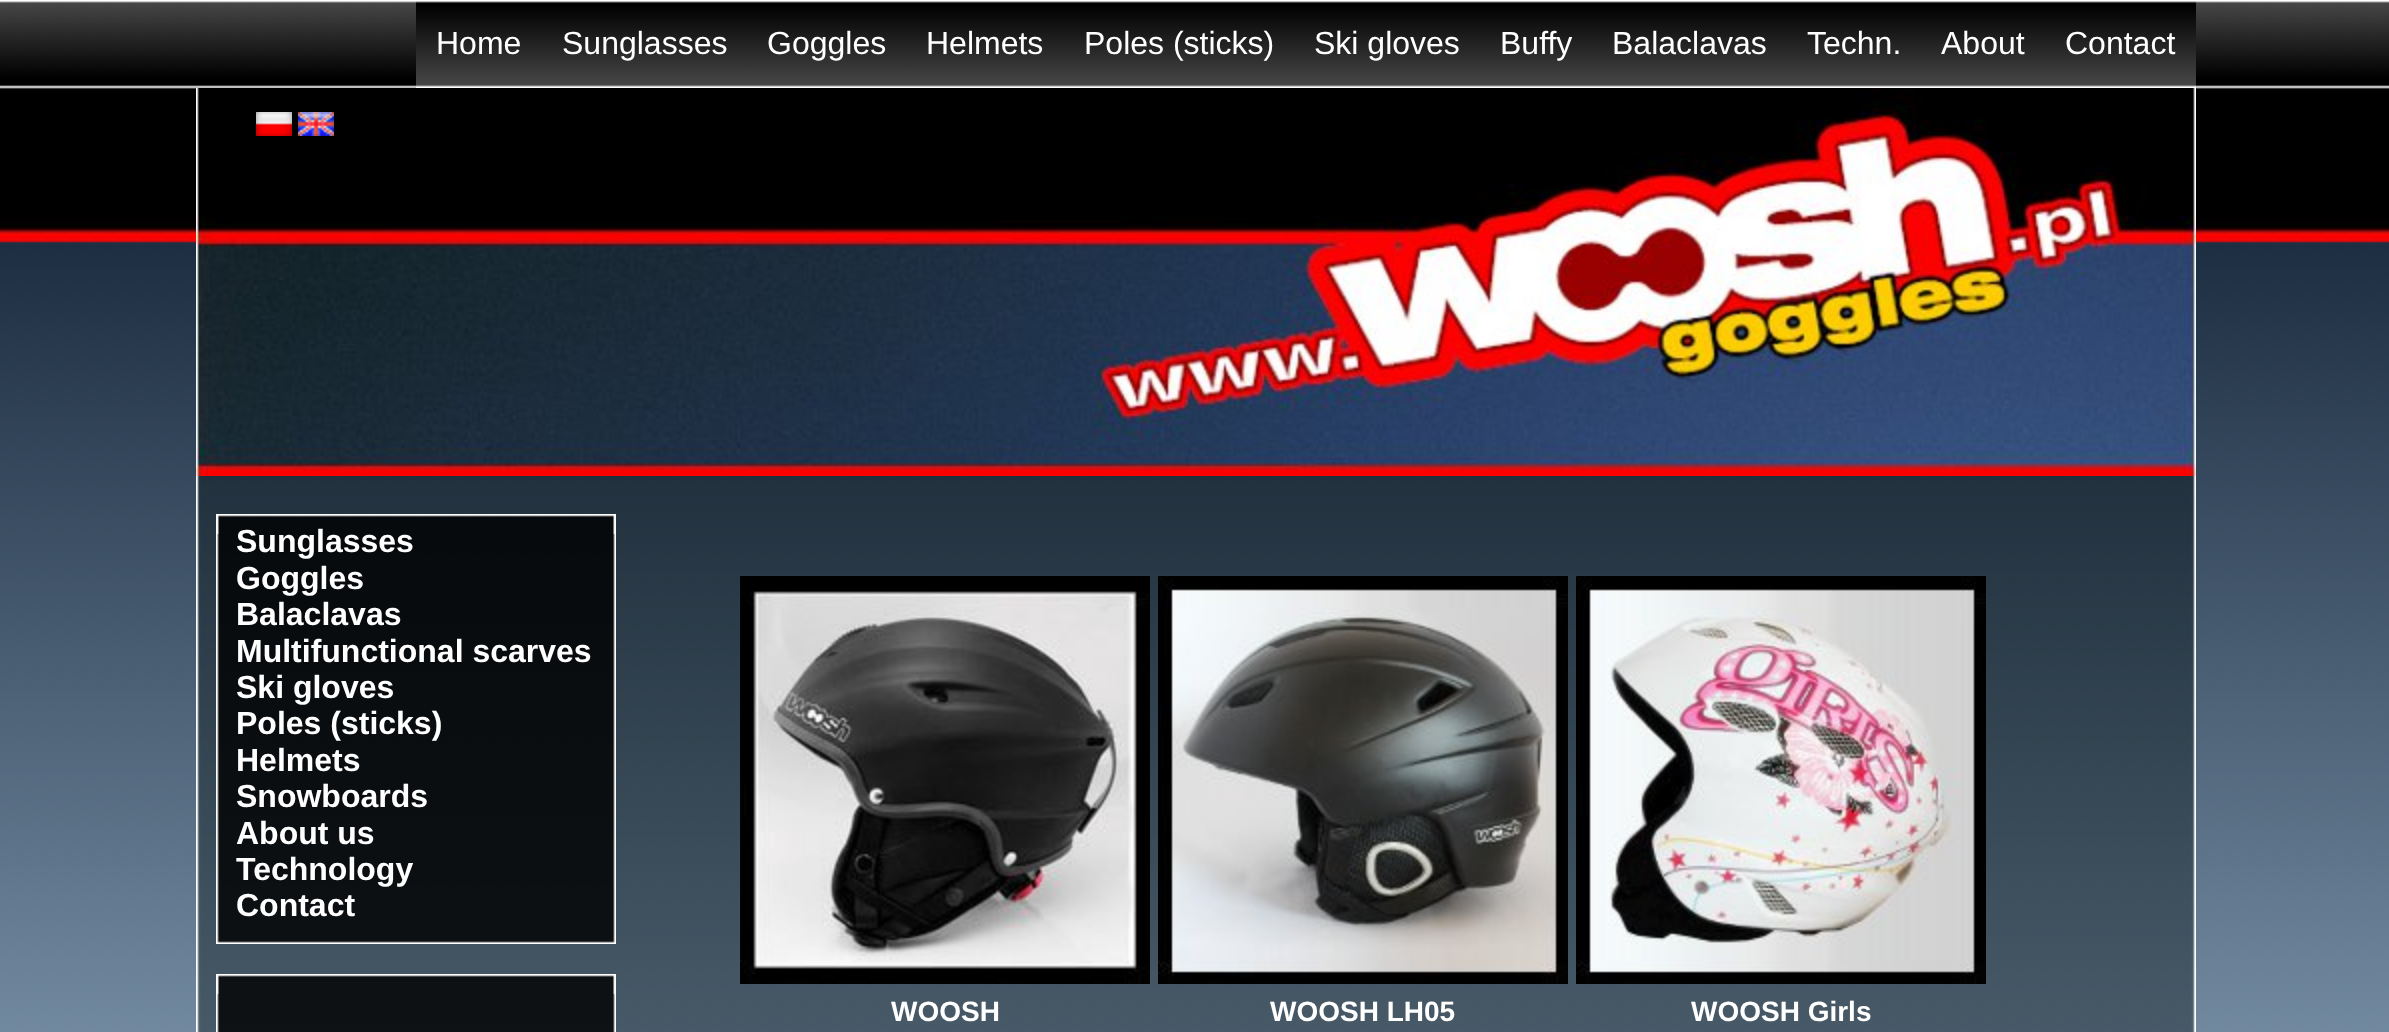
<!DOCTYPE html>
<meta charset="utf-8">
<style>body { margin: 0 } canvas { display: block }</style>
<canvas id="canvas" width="2389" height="1032"></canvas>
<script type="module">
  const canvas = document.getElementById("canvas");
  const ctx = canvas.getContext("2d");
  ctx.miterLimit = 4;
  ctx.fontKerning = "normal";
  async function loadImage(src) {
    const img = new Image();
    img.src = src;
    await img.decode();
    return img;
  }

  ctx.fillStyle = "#ffffff";
  ctx.fillRect(0, 0, 2389, 1032);
  ctx.drawImage(await loadImage("img1.png"), 0, 0, 2389, 1032);
  ctx.drawImage(await loadImage("img2.png"), 416, 1, 126, 87);
  ctx.font = "32px Liberation Sans";
  ctx.fillText("Home", 436, 54);
  ctx.drawImage(await loadImage("img3.png"), 542, 1, 206, 87);
  ctx.fillText("Sunglasses", 562, 54);
  ctx.drawImage(await loadImage("img4.png"), 748, 1, 158, 87);
  ctx.fillText("Goggles", 767, 54);
  ctx.drawImage(await loadImage("img4.png"), 906, 1, 158, 87);
  ctx.fillText("Helmets", 926, 54);
  ctx.drawImage(await loadImage("img5.png"), 1064, 1, 230, 87);
  ctx.fillText("Poles (sticks)", 1084, 54);
  ctx.drawImage(await loadImage("img6.png"), 1294, 1, 186, 87);
  ctx.fillText("Ski gloves", 1314, 54);
  ctx.drawImage(await loadImage("img7.png"), 1480, 1, 112, 87);
  ctx.fillText("Buffy", 1500, 54);
  ctx.drawImage(await loadImage("img8.png"), 1592, 1, 194, 87);
  ctx.fillText("Balaclavas", 1612, 54);
  ctx.drawImage(await loadImage("img9.png"), 1786, 1, 136, 87);
  ctx.fillText("Techn.", 1807, 54);
  ctx.drawImage(await loadImage("img10.png"), 1922, 1, 122, 87);
  ctx.fillText("About", 1941, 54);
  ctx.drawImage(await loadImage("img11.png"), 2044, 1, 152, 87);
  ctx.fillText("Contact", 2065, 54);
  ctx.drawImage(await loadImage("img12.png"), 196, 88, 2000, 388);
  ctx.drawImage(await loadImage("img13.png"), 256, 112, 36, 24);
  ctx.drawImage(await loadImage("img14.png"), 298, 112, 36, 24);
  ctx.drawImage(await loadImage("img15.png"), 196, 476, 2000, 556);
  ctx.drawImage(await loadImage("img16.png"), 216, 514, 400, 430);
  ctx.drawImage(await loadImage("img17.png"), 217, 514, 398, 20);
  ctx.font = "bold 32px Liberation Sans";
  ctx.fillText("Sunglasses", 236, 552);
  ctx.fillText("Goggles", 236, 589);
  ctx.fillText("Balaclavas", 236, 625);
  ctx.fillText("Multifunctional scarves", 236, 662);
  ctx.fillText("Ski gloves", 236, 698);
  ctx.fillText("Poles (sticks)", 236, 734);
  ctx.fillText("Helmets", 236, 771);
  ctx.fillText("Snowboards", 236, 807);
  ctx.fillText("About us", 236, 844);
  ctx.fillText("Technology", 236, 880);
  ctx.fillText("Contact", 236, 916);
  ctx.drawImage(await loadImage("img18.png"), 216, 974, 400, 58);
  ctx.drawImage(await loadImage("img19.png"), 217, 974, 398, 20);
  ctx.drawImage(await loadImage("img20.png"), 740, 576, 410, 408);
  ctx.drawImage(await loadImage("img21.png"), 1158, 576, 410, 408);
  ctx.drawImage(await loadImage("img22.png"), 1576, 576, 410, 408);
  ctx.font = "bold 28px Liberation Sans";
  ctx.fillText("WOOSH", 891, 1021);
  ctx.fillText("WOOSH LH05", 1270, 1021);
  ctx.fillText("WOOSH Girls", 1691, 1021);
</script>
